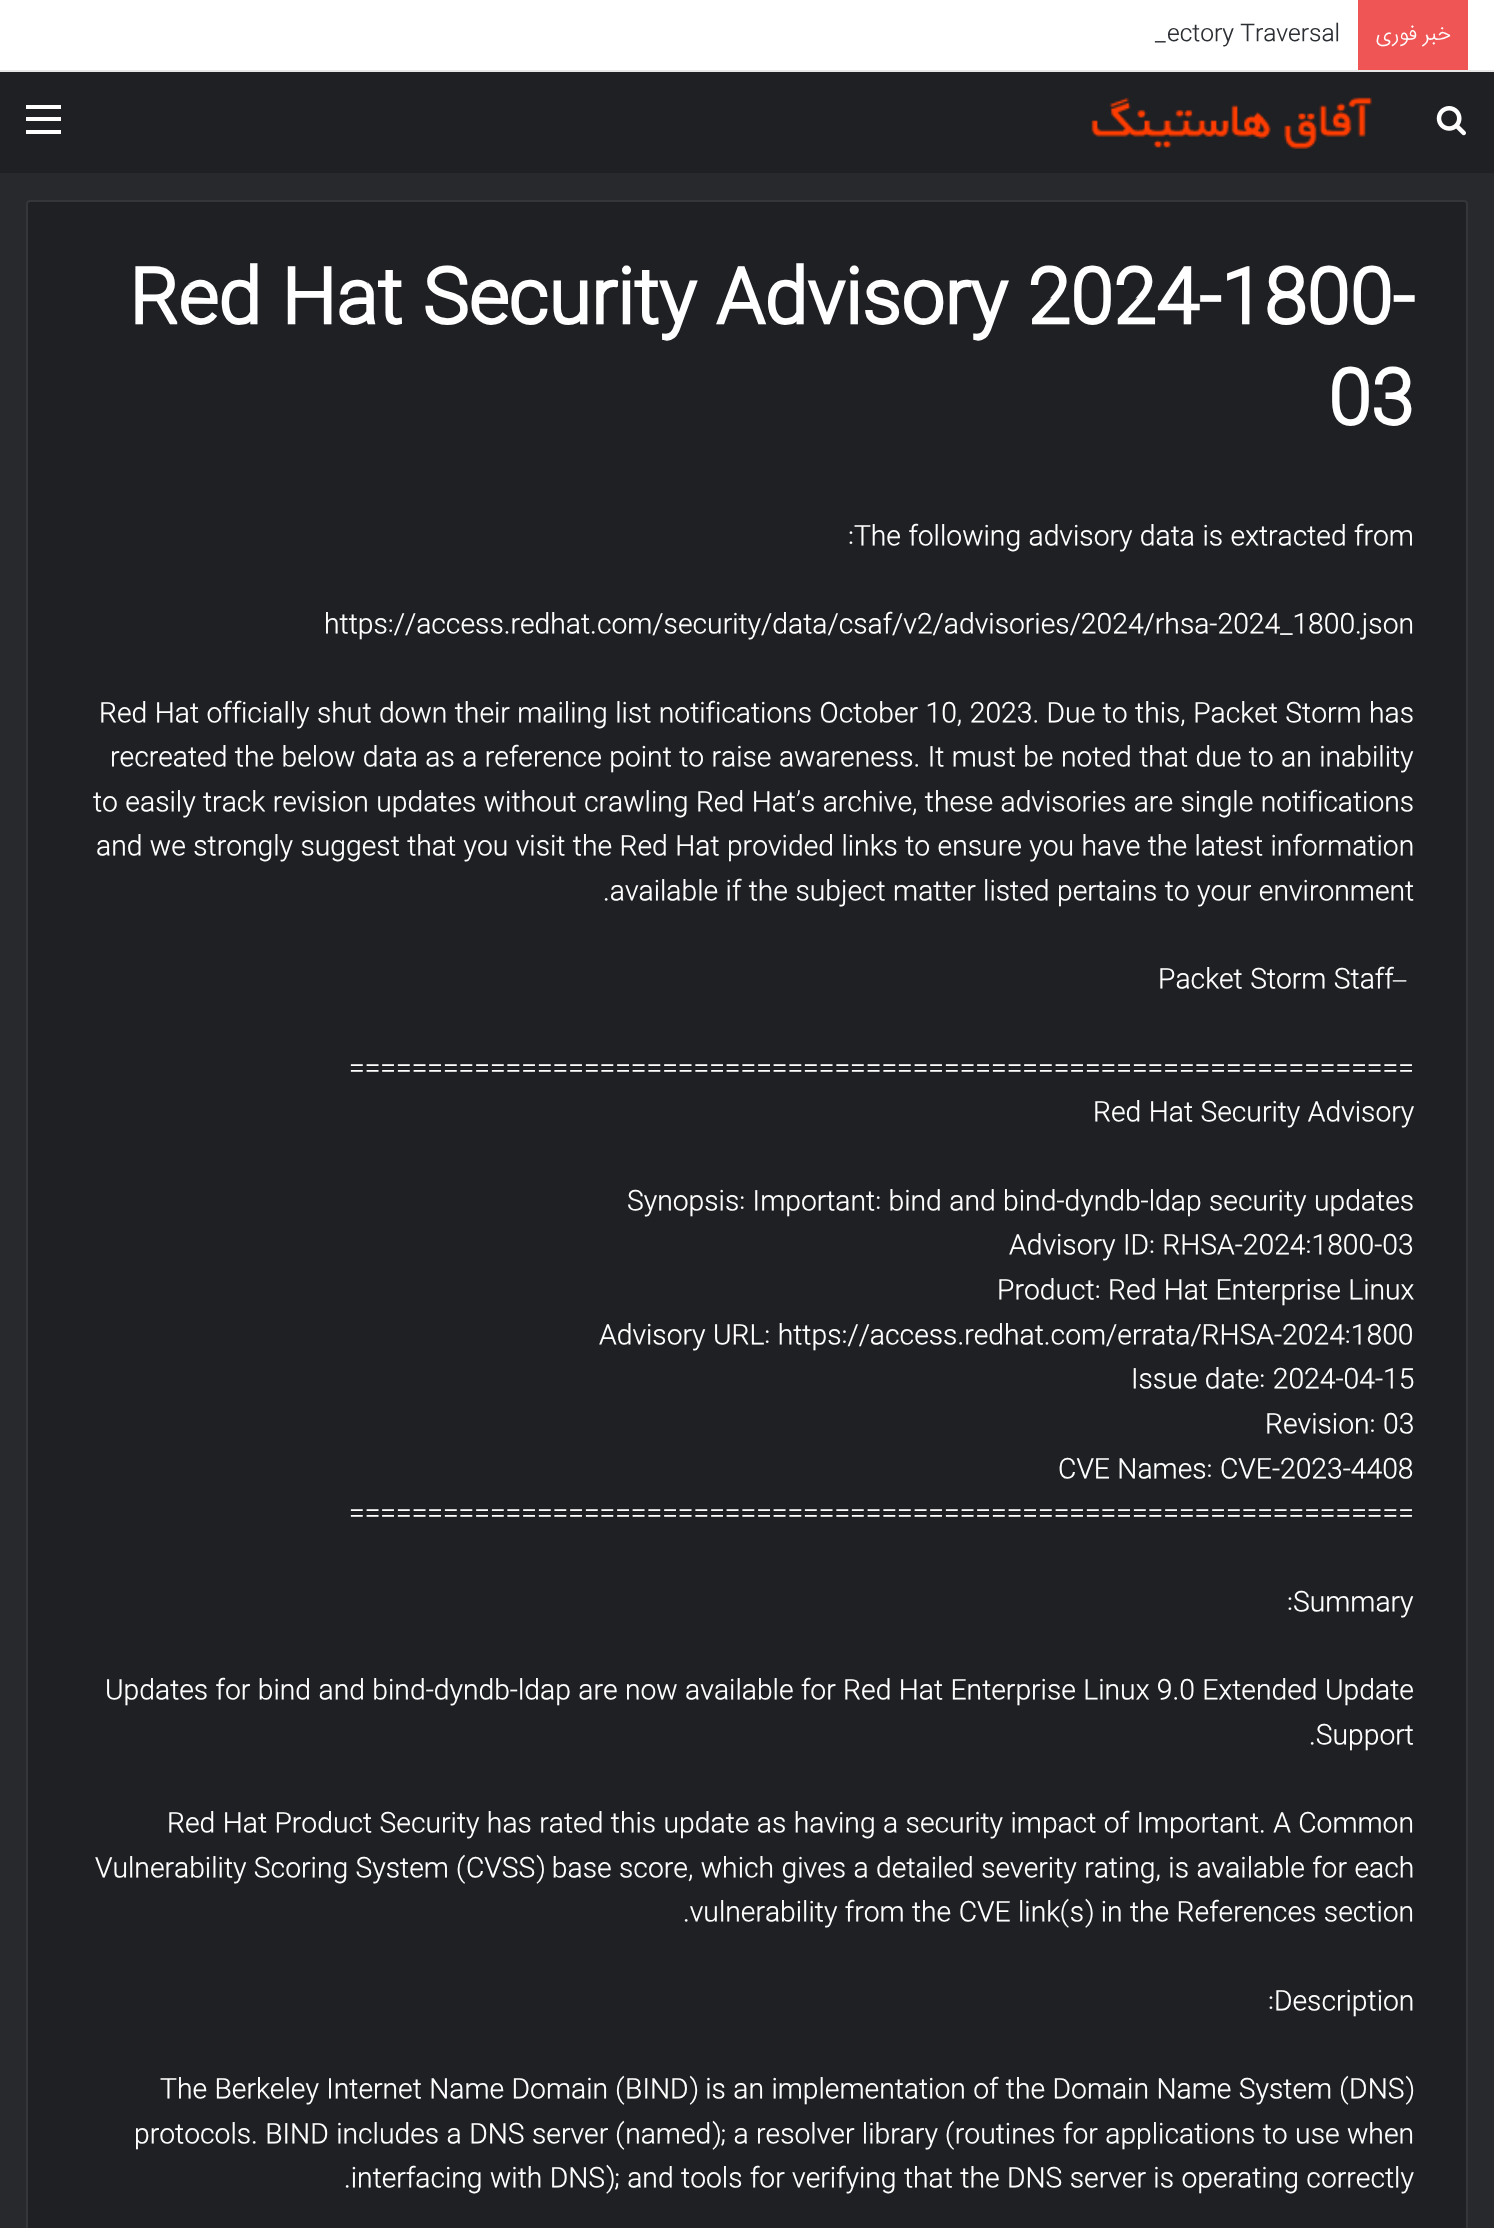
<!DOCTYPE html>
<meta charset="utf-8">
<style>body { margin: 0 } canvas { display: block }</style>
<canvas id="canvas" width="1494" height="2228"></canvas>
<script type="module">
  const canvas = document.getElementById("canvas");
  const ctx = canvas.getContext("2d");
  ctx.miterLimit = 4;
  ctx.fontKerning = "normal";
  async function loadImage(src) {
    const img = new Image();
    img.src = src;
    await img.decode();
    return img;
  }

  ctx.fillStyle = "#27292d";
  ctx.fillRect(0, 0, 1494, 2228);
  ctx.fillStyle = "#ffffff";
  ctx.fillRect(0, 0, 1494, 70);
  ctx.fillStyle = "#e6e6e6";
  ctx.fillRect(0, 70, 1494, 2);
  ctx.font = "300 22.75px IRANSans";
  ctx.fillStyle = "#2c2f34";
  ctx.fillText("_", 1155, 40);
  ctx.fillText("ectory Traversal", 1167, 40);
  ctx.fillStyle = "#f05555";
  ctx.fillRect(1358, 0, 110, 70);
  ctx.direction = "rtl";
  ctx.font = "300 21px IRANSans";
  ctx.fillStyle = "#ffffff";
  ctx.fillText("خبر فوری", 1451, 40);
  ctx.fillStyle = "#1f2024";
  ctx.fillRect(0, 72, 1494, 101);
  ctx.fillStyle = "#ffffff";
  ctx.fillRect(26, 117, 35, 4);
  ctx.fillRect(26, 105, 35, 4);
  ctx.fillRect(26, 130, 35, 4);
  ctx.drawImage(await loadImage("img1.png"), 1091, 97, 281, 52);
  ctx.drawImage(await loadImage("img2.png"), 1436, 106, 30, 30);
  ctx.fillStyle = "#1f2024";
  ctx.beginPath();
  ctx.roundRect(26, 200, 1442, 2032, 4);
  ctx.fill();
  ctx.beginPath();
  ctx.roundRect(27, 201, 1440, 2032, 3);
  ctx.strokeStyle = "rgba(255, 255, 255, 0.1)";
  ctx.lineWidth = 2;
  ctx.stroke();
  ctx.direction = "ltr";
  ctx.font = "bold 71.75px IRANSans";
  ctx.fillStyle = "#ffffff";
  ctx.fillText("Red Hat Security Advisory 2024-1800-", 129, 320);
  ctx.fillText("03", 1328, 421);
  ctx.font = "300 26.25px IRANSans";
  ctx.fillText(":The following advisory data is extracted from", 848, 544);
  ctx.fillText("https://access.redhat.com/security/data/csaf/v2/advisories/2024/rhsa-2024_1800.json", 324, 632);
  ctx.fillText("Red Hat officially shut down their mailing list notifications October 10, 2023. Due to this, Packet Storm has", 99, 721);
  ctx.fillText("recreated the below data as a reference point to raise awareness. It must be noted that due to an inability", 110, 765);
  ctx.fillText("to easily track revision updates without crawling Red Hat’s archive, these advisories are single notifications", 93, 810);
  ctx.fillText("and we strongly suggest that you visit the Red Hat provided links to ensure you have the latest information", 96, 854);
  ctx.fillText(".available if the subject matter listed pertains to your environment", 603, 899);
  ctx.fillText("Packet Storm Staff", 1158, 987);
  ctx.font = "26.25px Liberation Serif";
  ctx.fillText("–", 1393, 987);
  ctx.font = "300 26.25px IRANSans";
  ctx.fillText("====================================================================", 349, 1076);
  ctx.fillText("Red Hat Security Advisory", 1093, 1120);
  ctx.fillText("Synopsis: Important: bind and bind-dyndb-ldap security updates", 627, 1209);
  ctx.fillText("Advisory ID: RHSA-2024:1800-03", 1009, 1253);
  ctx.fillText("Product: Red Hat Enterprise Linux", 997, 1298);
  ctx.fillText("Advisory URL: https://access.redhat.com/errata/RHSA-2024:1800", 599, 1343);
  ctx.fillText("Issue date: 2024-04-15", 1131, 1387);
  ctx.fillText("Revision: 03", 1265, 1432);
  ctx.fillText("CVE Names: CVE-2023-4408", 1058, 1477);
  ctx.fillText("====================================================================", 349, 1521);
  ctx.fillText(":Summary", 1287, 1610);
  ctx.fillText("Updates for bind and bind-dyndb-ldap are now available for Red Hat Enterprise Linux 9.0 Extended Update", 105, 1698);
  ctx.fillText(".Support", 1309, 1743);
  ctx.fillText("Red Hat Product Security has rated this update as having a security impact of Important. A Common", 167, 1831);
  ctx.fillText("Vulnerability Scoring System (CVSS) base score, which gives a detailed severity rating, is available for each", 95, 1876);
  ctx.fillText(".vulnerability from the CVE link(s) in the References section", 683, 1920);
  ctx.fillText(":Description", 1268, 2009);
  ctx.fillText("The Berkeley Internet Name Domain (BIND) is an implementation of the Domain Name System (DNS)", 160, 2097);
  ctx.fillText("protocols. BIND includes a DNS server (named); a resolver library (routines for applications to use when", 134, 2142);
  ctx.fillText(".interfacing with DNS); and tools for verifying that the DNS server is operating correctly", 344, 2186);
</script>
